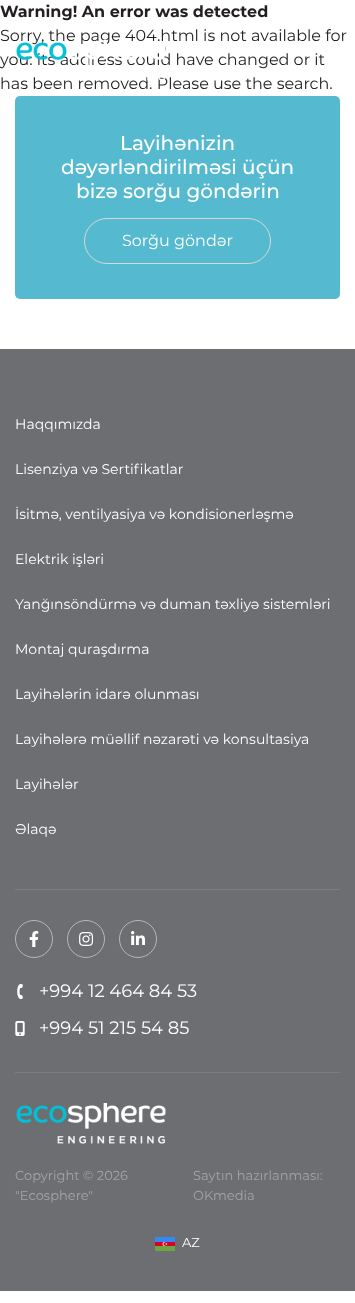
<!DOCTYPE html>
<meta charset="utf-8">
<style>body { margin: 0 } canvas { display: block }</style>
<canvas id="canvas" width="355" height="1303"></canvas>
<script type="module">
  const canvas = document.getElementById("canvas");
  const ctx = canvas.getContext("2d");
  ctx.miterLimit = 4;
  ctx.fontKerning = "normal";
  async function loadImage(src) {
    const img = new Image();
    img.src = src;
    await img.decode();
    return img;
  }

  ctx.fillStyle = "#ffffff";
  ctx.fillRect(0, 0, 355, 1303);
  ctx.font = "bold 16px Montserrat";
  ctx.fillStyle = "#231f20";
  ctx.fillText("Warning! An error was detected", 0, 17);
  ctx.font = "16px Montserrat";
  ctx.fillText("Sorry, the page 404.html is not available for", 0, 41);
  ctx.fillText("you: its address could have changed or it", 0, 65);
  ctx.fillText("has been removed. Please use the search.", 0, 89);
  ctx.drawImage(await loadImage("img1.png"), 16, 40, 150, 41);
  ctx.fillStyle = "#55bacf";
  ctx.beginPath();
  ctx.roundRect(15, 96, 325, 203, 5);
  ctx.fill();
  ctx.font = "500 20px Montserrat";
  ctx.fillStyle = "#ffffff";
  ctx.fillText("Layihənizin", 120, 150);
  ctx.fillText("dəyərləndirilməsi üçün", 61, 174);
  ctx.fillText("bizə sorğu göndərin", 76, 198);
  ctx.beginPath();
  ctx.roundRect(84.5, 218.5, 186, 45, 22.5);
  ctx.strokeStyle = "#d8d8d8";
  ctx.stroke();
  ctx.font = "16px Montserrat";
  ctx.fillText("Sorğu göndər", 122, 246);
  ctx.fillStyle = "#6d6e71";
  ctx.fillRect(0, 349, 355, 942);
  ctx.fillStyle = "#7c7d7f";
  ctx.fillRect(15, 889, 325, 1);
  ctx.font = "14px Montserrat";
  ctx.fillStyle = "#ffffff";
  ctx.fillText("Haqqımızda", 15, 429);
  ctx.fillText("Lisenziya və Sertifikatlar", 15, 474);
  ctx.fillText("İsitmə, ventilyasiya və kondisionerləşmə", 15, 519);
  ctx.fillText("Elektrik işləri", 15, 564);
  ctx.fillText("Yanğınsöndürmə və duman təxliyə sistemləri", 15, 609);
  ctx.fillText("Montaj quraşdırma", 15, 654);
  ctx.fillText("Layihələrin idarə olunması", 15, 699);
  ctx.fillText("Layihələrə müəllif nəzarəti və konsultasiya", 15, 744);
  ctx.fillText("Layihələr", 15, 789);
  ctx.fillText("Əlaqə", 15, 834);
  ctx.fillStyle = "#7c7d7f";
  ctx.fillRect(15, 1072, 325, 1);
  ctx.beginPath();
  ctx.arc(34, 939, 18.5, 0, Math.PI * 2);
  ctx.strokeStyle = "#b6b7b8";
  ctx.stroke();
  ctx.drawImage(await loadImage("img2.png"), 29, 931, 10, 16);
  ctx.beginPath();
  ctx.arc(86, 939, 18.5, 0, Math.PI * 2);
  ctx.stroke();
  ctx.drawImage(await loadImage("img3.png"), 79, 932, 15, 14);
  ctx.beginPath();
  ctx.arc(138, 939, 18.5, 0, Math.PI * 2);
  ctx.stroke();
  ctx.drawImage(await loadImage("img4.png"), 131, 931, 14, 14);
  ctx.drawImage(await loadImage("img5.png"), 17, 984, 6, 15);
  ctx.font = "18px Montserrat";
  ctx.fillStyle = "#ffffff";
  ctx.fillText("+994 12 464 84 53", 39, 997);
  ctx.drawImage(await loadImage("img6.png"), 15, 1021, 10, 15);
  ctx.fillText("+994 51 215 54 85", 39, 1034);
  ctx.drawImage(await loadImage("img7.png"), 16, 1103, 150, 41);
  ctx.font = "13px Montserrat";
  ctx.fillStyle = "#a3a4a7";
  ctx.fillText("Copyright © 2026", 15, 1180);
  ctx.fillText("\"Ecosphere\"", 15, 1200);
  ctx.fillText("Saytın hazırlanması:", 193, 1180);
  ctx.fillText("OKmedia", 193, 1200);
  ctx.drawImage(await loadImage("img8.png"), 155, 1237, 20, 14);
  ctx.fillStyle = "#ffffff";
  ctx.fillText("AZ", 182, 1247);
</script>
